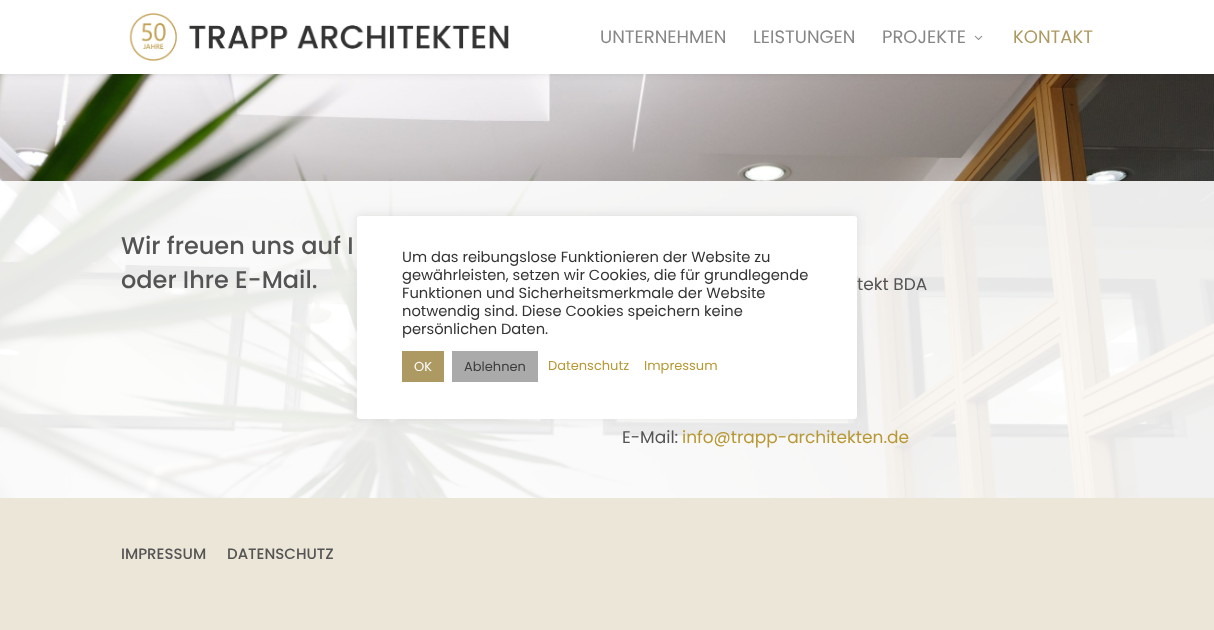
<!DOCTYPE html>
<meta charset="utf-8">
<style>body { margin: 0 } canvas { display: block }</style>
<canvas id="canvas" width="1214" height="630"></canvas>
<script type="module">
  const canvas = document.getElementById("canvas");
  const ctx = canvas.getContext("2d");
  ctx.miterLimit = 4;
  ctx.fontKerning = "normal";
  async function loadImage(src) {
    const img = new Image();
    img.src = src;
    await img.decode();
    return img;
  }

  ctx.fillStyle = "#ffffff";
  ctx.fillRect(0, 0, 1214, 630);
  ctx.drawImage(await loadImage("img3.png"), 0, 74, 1214, 424);
  ctx.fillStyle = "rgba(0, 0, 0, 0.1)";
  ctx.filter = "blur(3.5px)";
  ctx.beginPath();
  ctx.rect(0, 0, 1214, 74);
  ctx.fill();
  ctx.filter = "none";
  ctx.fillStyle = "#ffffff";
  ctx.fillRect(0, 0, 1214, 74);
  ctx.drawImage(await loadImage("img1.png"), 129, 13, 380, 48);
  ctx.font = "18px Poppins";
  ctx.fillStyle = "#878787";
  ctx.fillText("UNTERNEHMEN", 600, 43);
  ctx.fillText("LEISTUNGEN", 753, 43);
  ctx.fillText("PROJEKTE", 882, 43);
  ctx.drawImage(await loadImage("img2.png"), 974, 35, 9, 5);
  ctx.fillStyle = "#ad9962";
  ctx.fillText("KONTAKT", 1013, 43);
  ctx.fillStyle = "rgba(255, 255, 255, 0.9)";
  ctx.fillRect(0, 181, 1214, 317);
  ctx.font = "500 24px Poppins";
  ctx.fillStyle = "#545454";
  ctx.fillText("Wir freuen uns auf I", 121, 254);
  ctx.fillText("oder Ihre E-Mail.", 121, 288);
  ctx.font = "17px Poppins";
  ctx.fillText("tekt BDA", 857, 290);
  ctx.fillText("E-Mail:", 622, 443);
  ctx.fillStyle = "#b79833";
  ctx.fillText("info@trapp-architekten.de", 682, 443);
  ctx.fillStyle = "#ebe6d8";
  ctx.fillRect(0, 498, 1214, 132);
  ctx.font = "500 15px Poppins";
  ctx.fillStyle = "#545454";
  ctx.fillText("IMPRESSUM", 121, 559);
  ctx.fillText("DATENSCHUTZ", 227, 559);
  ctx.fillStyle = "rgba(172, 171, 171, 0.3)";
  ctx.filter = "blur(5px)";
  ctx.beginPath();
  ctx.roundRect(357, 215, 500, 203, 3);
  ctx.fill();
  ctx.filter = "none";
  ctx.fillStyle = "#ffffff";
  ctx.beginPath();
  ctx.roundRect(357, 216, 500, 203, 3);
  ctx.fill();
  ctx.font = "14.7px Poppins";
  ctx.fillStyle = "#333333";
  ctx.fillText("Um das reibungslose Funktionieren der Website zu", 402, 262);
  ctx.fillText("gewährleisten, setzen wir Cookies, die für grundlegende", 402, 280);
  ctx.fillText("Funktionen und Sicherheitsmerkmale der Website", 402, 298);
  ctx.fillText("notwendig sind. Diese Cookies speichern keine", 402, 316);
  ctx.fillText("persönlichen Daten.", 402, 334);
  ctx.fillStyle = "#ad9962";
  ctx.fillRect(402, 351, 42, 31);
  ctx.font = "13px Poppins";
  ctx.fillStyle = "#ffffff";
  ctx.fillText("OK", 414, 371);
  ctx.fillStyle = "#aaaaaa";
  ctx.fillRect(452, 351, 86, 31);
  ctx.fillStyle = "#3d3d3d";
  ctx.fillText("Ablehnen", 464, 371);
  ctx.fillStyle = "#b79833";
  ctx.fillText("Datenschutz", 548, 370);
  ctx.fillText("Impressum", 644, 370);
</script>
